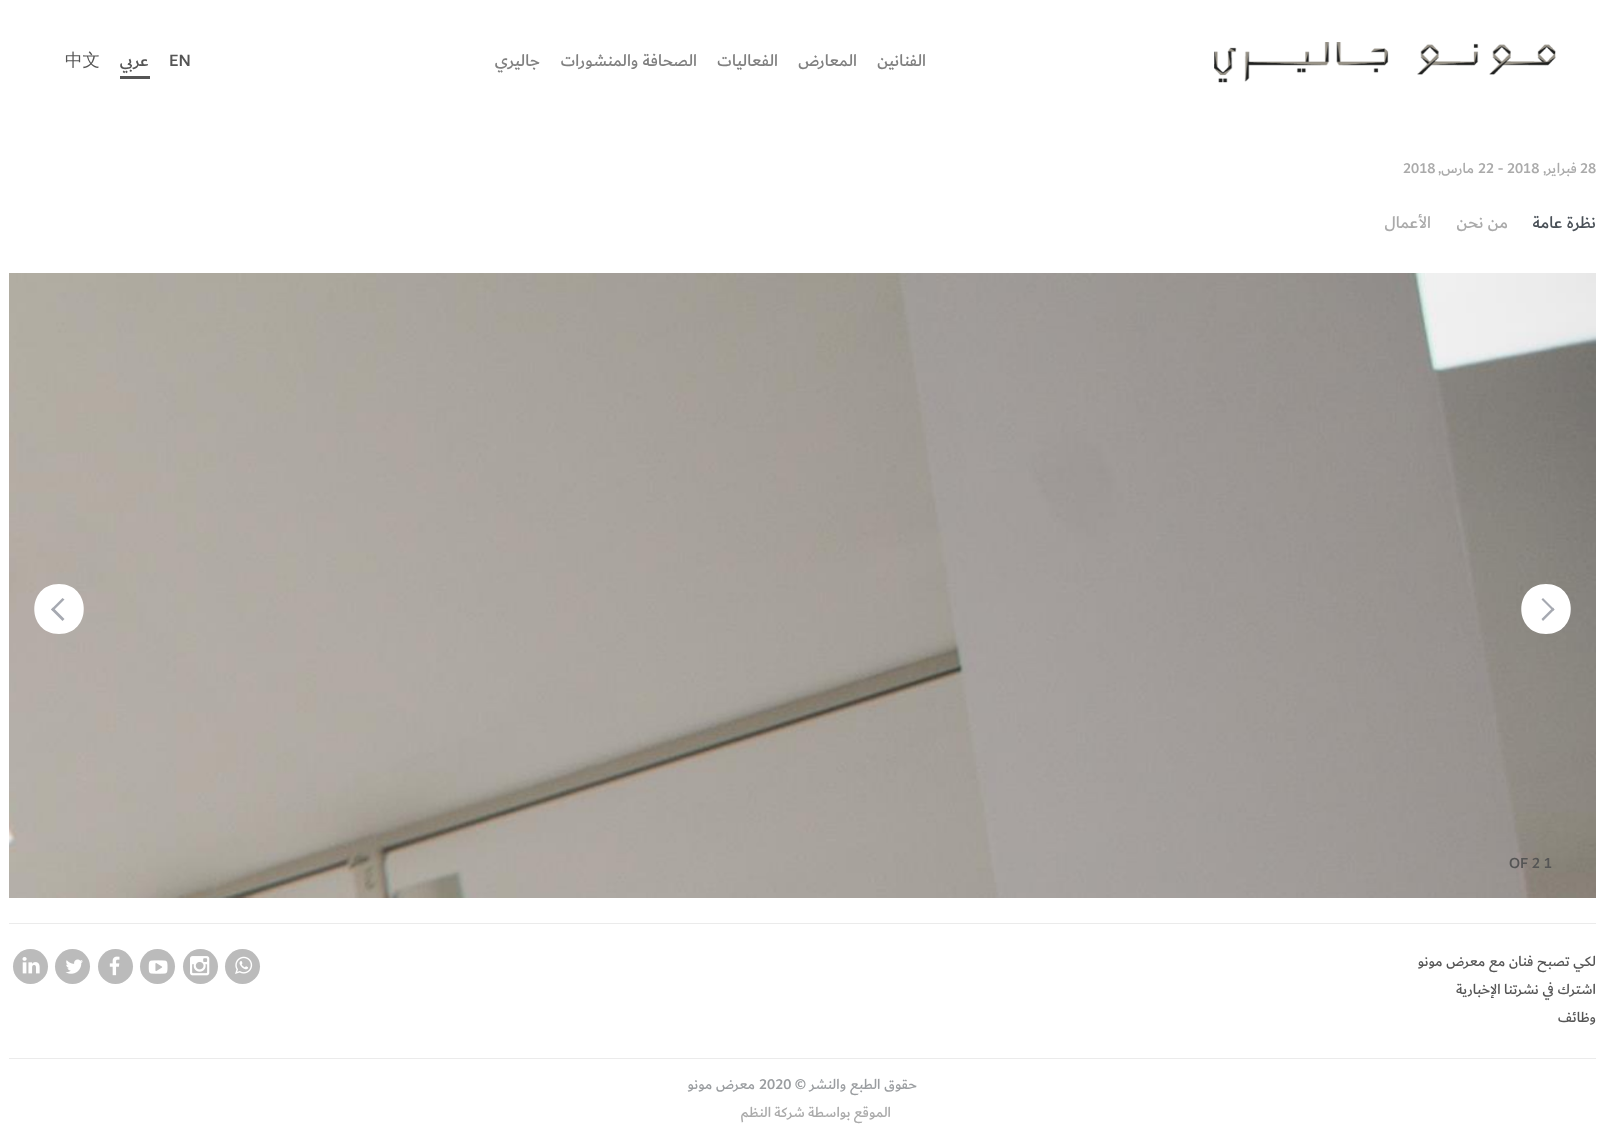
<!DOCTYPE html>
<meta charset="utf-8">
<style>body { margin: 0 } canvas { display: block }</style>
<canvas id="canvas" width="1604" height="1145"></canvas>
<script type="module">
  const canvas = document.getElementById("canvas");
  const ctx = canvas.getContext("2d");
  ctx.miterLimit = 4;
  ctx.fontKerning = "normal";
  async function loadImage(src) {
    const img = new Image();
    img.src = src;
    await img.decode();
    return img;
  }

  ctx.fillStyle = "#ffffff";
  ctx.fillRect(0, 0, 1604, 1145);
  ctx.drawImage(await loadImage("img1.png"), 1214, 42, 342, 41);
  ctx.direction = "rtl";
  ctx.font = "500 17.5px 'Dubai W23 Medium'";
  ctx.fillStyle = "#808080";
  ctx.fillText("الفنانين", 926, 66);
  ctx.fillText("المعارض", 857, 66);
  ctx.fillText("الفعاليات", 778, 66);
  ctx.fillText("الصحافة والمنشورات", 697, 66);
  ctx.fillText("جاليري", 540, 66);
  ctx.direction = "ltr";
  ctx.fillStyle = "#555555";
  ctx.fillText("EN", 169, 66);
  ctx.direction = "rtl";
  ctx.fillText("عربي", 149, 66);
  ctx.fillRect(120, 76, 30, 3);
  ctx.direction = "ltr";
  ctx.font = "500 17.5px WenQuanYi Zen Hei";
  ctx.fillText("中文", 65, 66);
  ctx.font = "500 15px 'Dubai W23 Medium'";
  ctx.fillStyle = "#aaaaaa";
  ctx.fillText("28", 1580, 173);
  ctx.direction = "rtl";
  ctx.fillText("فبراير,", 1577, 173);
  ctx.direction = "ltr";
  ctx.fillText("22 - 2018", 1478, 173);
  ctx.direction = "rtl";
  ctx.fillText("مارس,", 1474, 173);
  ctx.direction = "ltr";
  ctx.fillText("2018", 1403, 173);
  ctx.direction = "rtl";
  ctx.font = "500 17.5px 'Dubai W23 Medium'";
  ctx.fillStyle = "#495057";
  ctx.fillText("نظرة عامة", 1596, 228);
  ctx.fillStyle = "#aaaaaa";
  ctx.fillText("من نحن", 1508, 228);
  ctx.fillText("الأعمال", 1431, 228);
  ctx.drawImage(await loadImage("img2.png"), 9, 273, 1587, 625);
  ctx.fillStyle = "#ffffff";
  ctx.beginPath();
  ctx.moveTo(1546, 634);
  ctx.bezierCurveTo(1513, 634, 1513, 584, 1546, 584);
  ctx.bezierCurveTo(1579, 584, 1579, 634, 1546, 634);
  ctx.closePath();
  ctx.fill();
  ctx.fillStyle = "#a6a9b1";
  ctx.beginPath();
  ctx.moveTo(1543, 598);
  ctx.lineTo(1554.5, 609.5);
  ctx.lineTo(1553, 611);
  ctx.lineTo(1541.5, 599.5);
  ctx.closePath();
  ctx.fill();
  ctx.beginPath();
  ctx.moveTo(1553, 607.5);
  ctx.lineTo(1554.5, 609.5);
  ctx.lineTo(1543, 621);
  ctx.lineTo(1541.5, 619);
  ctx.closePath();
  ctx.fill();
  ctx.fillStyle = "#ffffff";
  ctx.beginPath();
  ctx.moveTo(59, 634);
  ctx.bezierCurveTo(26, 634, 26, 584, 59, 584);
  ctx.bezierCurveTo(92, 584, 92, 634, 59, 634);
  ctx.closePath();
  ctx.fill();
  ctx.fillStyle = "#a6a9b1";
  ctx.beginPath();
  ctx.moveTo(62.5, 621);
  ctx.lineTo(51, 609.5);
  ctx.lineTo(53, 607.5);
  ctx.lineTo(64.5, 619);
  ctx.closePath();
  ctx.fill();
  ctx.beginPath();
  ctx.moveTo(53, 611);
  ctx.lineTo(51, 609.5);
  ctx.lineTo(62.5, 598);
  ctx.lineTo(64.5, 599.5);
  ctx.closePath();
  ctx.fill();
  ctx.direction = "ltr";
  ctx.font = "500 15.5px 'Dubai W23 Medium'";
  ctx.fillStyle = "#555555";
  ctx.fillText("OF 2 1", 1509, 868);
  ctx.fillStyle = "#ebebeb";
  ctx.fillRect(9, 923, 1587, 1);
  ctx.direction = "rtl";
  ctx.font = "500 15px 'Dubai W23 Medium'";
  ctx.fillStyle = "#555555";
  ctx.fillText("لكي تصبح فنان مع معرض مونو", 1596, 966);
  ctx.fillText("اشترك في نشرتنا الإخبارية", 1596, 994);
  ctx.fillText("وظائف", 1596, 1022);
  ctx.fillStyle = "#bbbbbb";
  ctx.beginPath();
  ctx.arc(242.5, 966.5, 17.5, 0, Math.PI * 2);
  ctx.fill();
  ctx.drawImage(await loadImage("img3.png"), 235, 956, 18, 18);
  ctx.beginPath();
  ctx.arc(200.5, 966.5, 17.5, 0, Math.PI * 2);
  ctx.fill();
  ctx.drawImage(await loadImage("img4.png"), 190, 956, 20, 20);
  ctx.beginPath();
  ctx.arc(157.5, 966.5, 17.5, 0, Math.PI * 2);
  ctx.fill();
  ctx.drawImage(await loadImage("img5.png"), 148, 960, 20, 14);
  ctx.beginPath();
  ctx.arc(115.5, 966.5, 17.5, 0, Math.PI * 2);
  ctx.fill();
  ctx.drawImage(await loadImage("img6.png"), 109, 956, 11, 20);
  ctx.beginPath();
  ctx.arc(72.5, 966.5, 17.5, 0, Math.PI * 2);
  ctx.fill();
  ctx.drawImage(await loadImage("img7.png"), 65, 959, 18, 15);
  ctx.beginPath();
  ctx.arc(30.5, 966.5, 17.5, 0, Math.PI * 2);
  ctx.fill();
  ctx.drawImage(await loadImage("img8.png"), 22, 957, 18, 17);
  ctx.fillStyle = "#ebebeb";
  ctx.fillRect(9, 1058, 1587, 1);
  ctx.fillStyle = "#9a9da0";
  ctx.fillText("حقوق الطبع والنشر ©", 917, 1089);
  ctx.direction = "ltr";
  ctx.fillText("2020", 759, 1089);
  ctx.direction = "rtl";
  ctx.fillText("معرض مونو", 755, 1089);
  ctx.letterSpacing = "0.6px";
  ctx.wordSpacing = "-1px";
  ctx.fillStyle = "#aaaaaa";
  ctx.fillText("الموقع بواسطة شركة النظم", 891, 1117);
</script>
